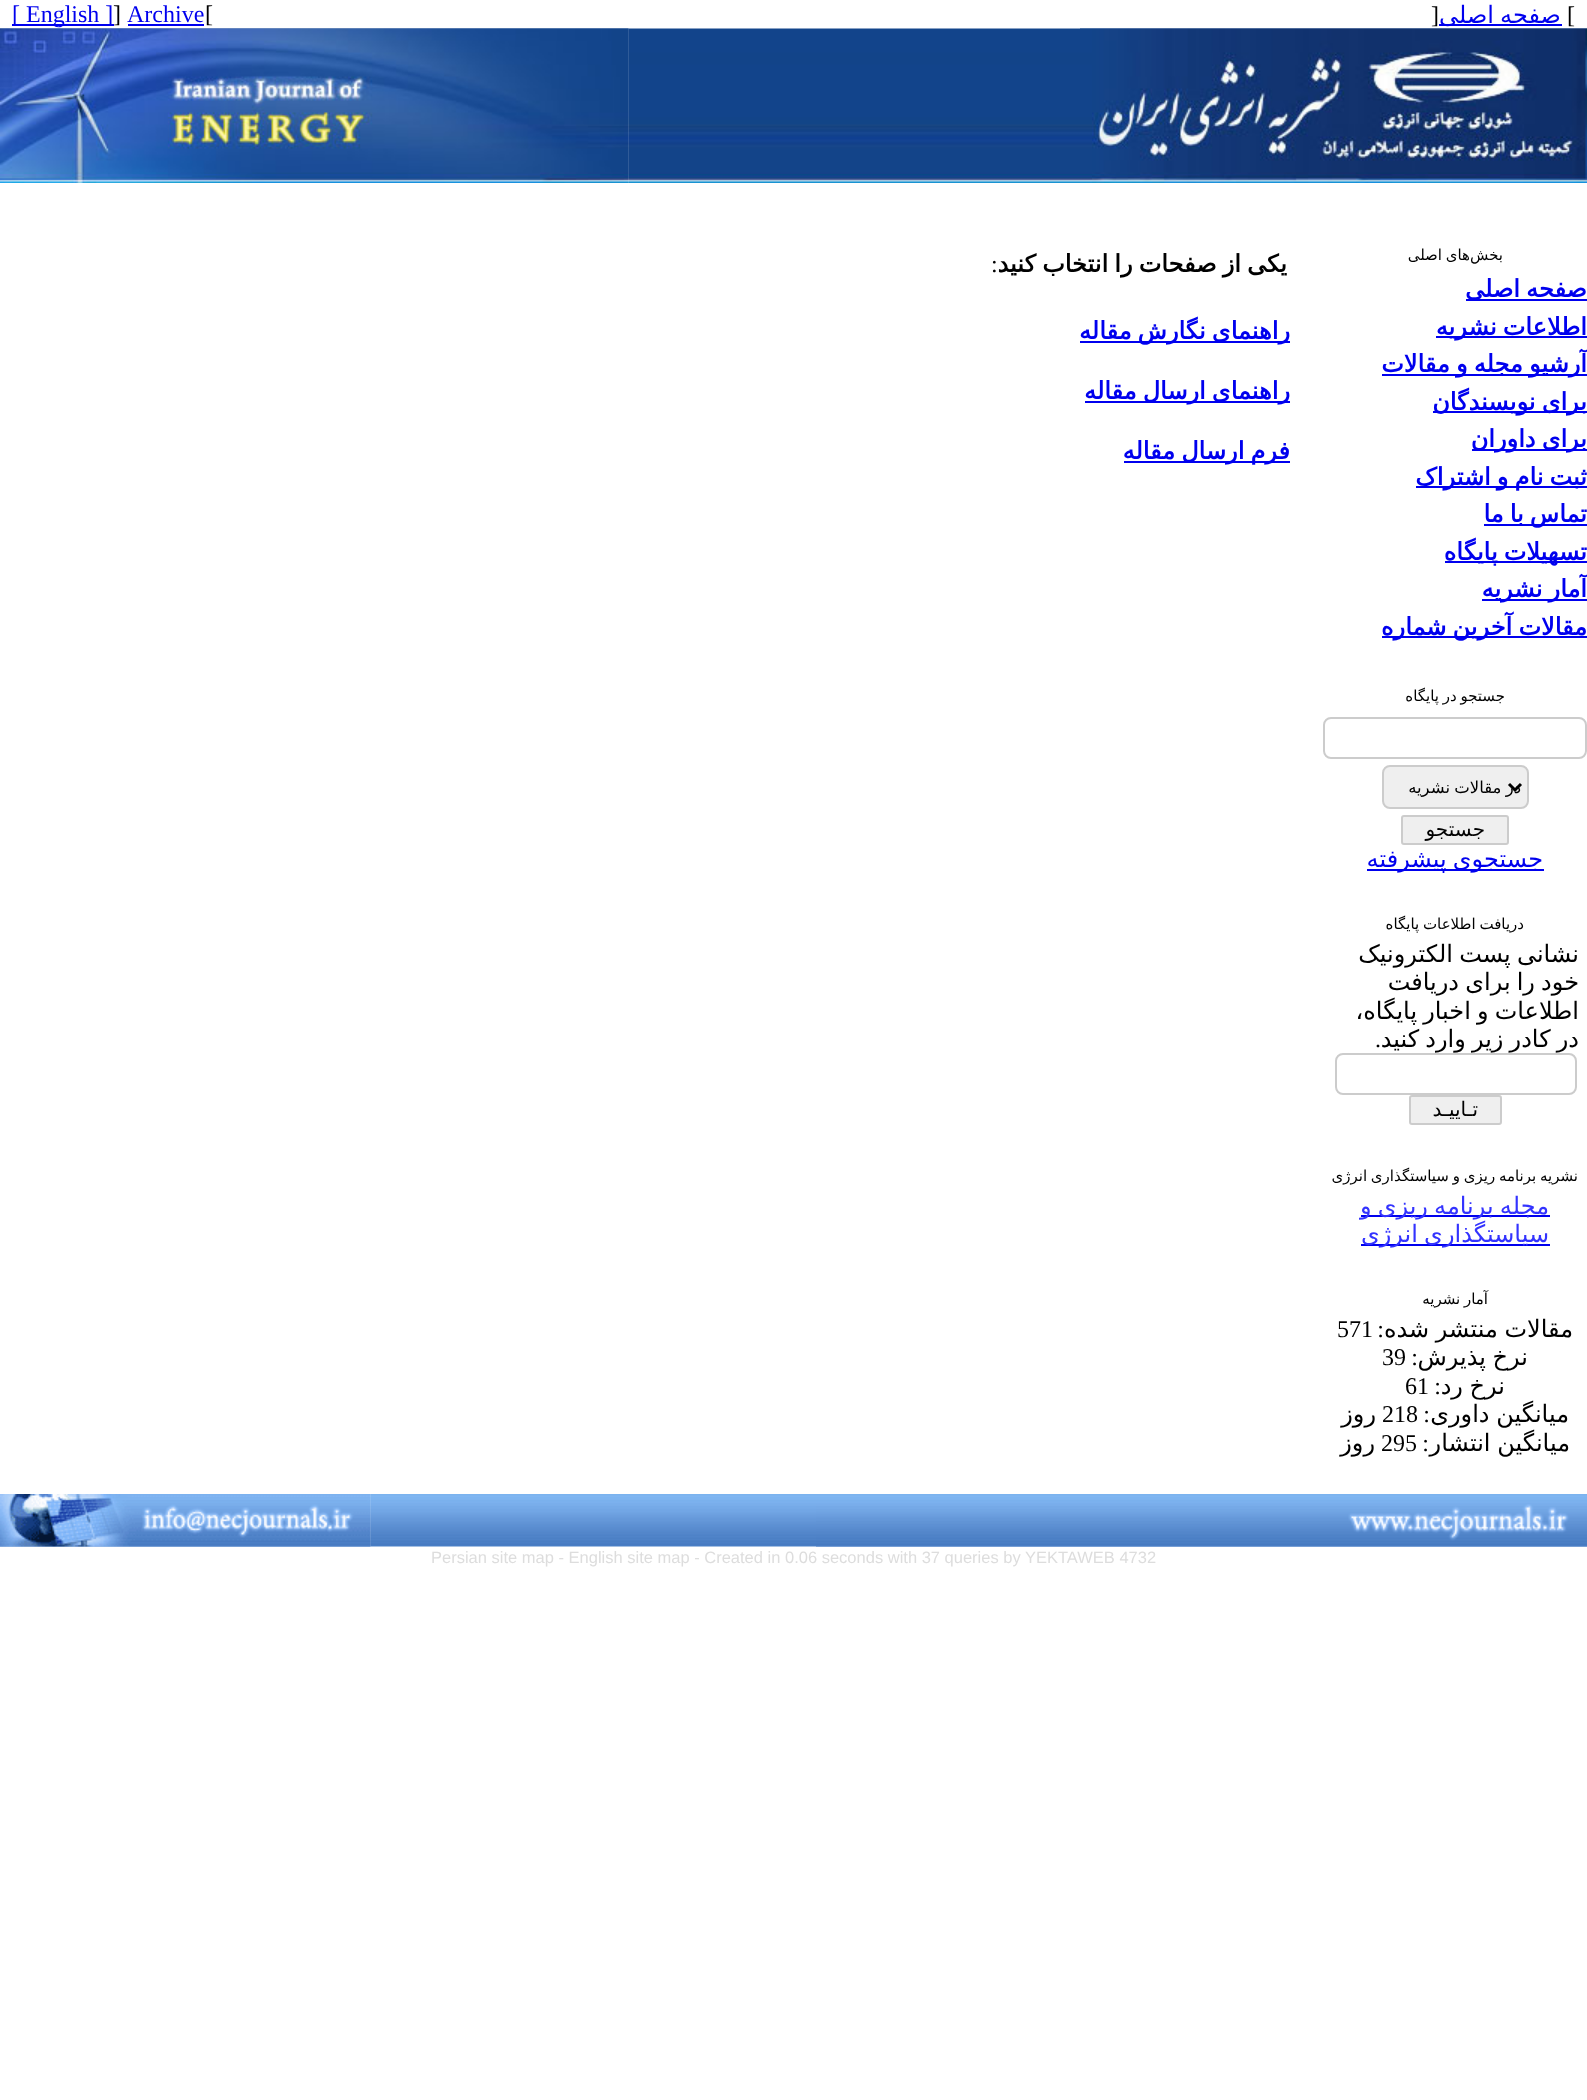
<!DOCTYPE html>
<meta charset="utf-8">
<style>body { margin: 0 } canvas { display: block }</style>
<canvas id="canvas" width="1587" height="2100"></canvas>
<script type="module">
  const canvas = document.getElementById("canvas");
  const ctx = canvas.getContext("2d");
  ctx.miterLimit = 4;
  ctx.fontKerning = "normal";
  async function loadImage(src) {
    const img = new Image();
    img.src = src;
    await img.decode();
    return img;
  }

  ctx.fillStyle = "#ffffff";
  ctx.fillRect(0, 0, 1587, 2100);
  ctx.font = "24px Liberation Serif";
  ctx.fillStyle = "#000000";
  ctx.fillText("[", 1567, 23);
  ctx.fillStyle = "#0000ee";
  ctx.fillRect(1439, 24, 123, 2);
  ctx.wordSpacing = "-1.5px";
  ctx.direction = "rtl";
  ctx.font = "24px DejaVu Sans";
  ctx.fillText("صفحه اصلی", 1561, 23);
  ctx.wordSpacing = "0px";
  ctx.direction = "ltr";
  ctx.font = "24px Liberation Serif";
  ctx.fillStyle = "#000000";
  ctx.fillText("]", 1431, 23);
  ctx.fillText("[", 205, 22);
  ctx.fillStyle = "#0000ee";
  ctx.fillText("Archive", 127, 22);
  ctx.fillRect(128, 24, 76, 2);
  ctx.fillStyle = "#000000";
  ctx.fillText("]", 113, 22);
  ctx.fillStyle = "#0000ee";
  ctx.fillRect(12, 24, 102, 2);
  ctx.fillText("[ English ]", 12, 22);
  ctx.drawImage(await loadImage("img1.png"), 1092, 28, 495, 1);
  ctx.drawImage(await loadImage("img2.png"), 1092, 28, 495, 155);
  ctx.drawImage(await loadImage("img3.png"), 628, 28, 464, 155);
  ctx.fillStyle = "#4d73a7";
  ctx.fillRect(1080, 28, 12, 1);
  ctx.drawImage(await loadImage("img4.png"), 0, 28, 629, 155);
  ctx.drawImage(await loadImage("img5.png"), 0, 28, 629, 155);
  ctx.direction = "rtl";
  ctx.font = "15px DejaVu Sans";
  ctx.fillStyle = "#000000";
  ctx.fillText("بخش", 1503, 260);
  ctx.wordSpacing = "-1px";
  ctx.fillText("های اصلی", 1470, 260);
  ctx.fillStyle = "#0000ee";
  ctx.fillRect(1466, 299, 121, 2);
  ctx.wordSpacing = "-1.5px";
  ctx.font = "bold 24px DejaVu Sans";
  ctx.fillText("صفحه اصلی", 1587, 297);
  ctx.fillRect(1436, 336, 151, 2);
  ctx.fillText("اطلاعات نشریه", 1587, 335);
  ctx.fillRect(1382, 374, 205, 2);
  ctx.fillText("آرشیو مجله و مقالات", 1587, 372);
  ctx.fillRect(1433, 411, 154, 2);
  ctx.fillText("برای نویسندگان", 1587, 410);
  ctx.fillRect(1472, 449, 115, 2);
  ctx.fillText("برای داوران", 1587, 447);
  ctx.fillRect(1416, 486, 171, 2);
  ctx.fillText("ثبت نام و اشتراک", 1587, 485);
  ctx.fillRect(1484, 524, 103, 2);
  ctx.fillText("تماس با ما", 1587, 522);
  ctx.fillRect(1445, 561, 142, 2);
  ctx.fillText("تسهیلات پایگاه", 1587, 560);
  ctx.fillRect(1482, 599, 105, 2);
  ctx.fillText("آمار نشریه", 1587, 597);
  ctx.fillRect(1382, 636, 205, 2);
  ctx.fillText("مقالات آخرین شماره", 1587, 635);
  ctx.wordSpacing = "-1px";
  ctx.font = "15px DejaVu Sans";
  ctx.fillStyle = "#000000";
  ctx.fillText("جستجو در پایگاه", 1505, 701);
  ctx.beginPath();
  ctx.roundRect(1324, 718, 262, 40, 7);
  ctx.strokeStyle = "#cccccc";
  ctx.lineWidth = 2;
  ctx.stroke();
  ctx.fillStyle = "#efefef";
  ctx.beginPath();
  ctx.roundRect(1383, 766, 145, 42, 7);
  ctx.fill();
  ctx.stroke();
  ctx.beginPath();
  ctx.moveTo(1509, 784);
  ctx.lineTo(1515, 790);
  ctx.lineTo(1521, 784);
  ctx.strokeStyle = "#000000";
  ctx.lineWidth = 3;
  ctx.stroke();
  ctx.font = "16.5px DejaVu Sans";
  ctx.fillStyle = "#000000";
  ctx.fillText("در مقالات نشریه", 1521, 793);
  ctx.fillStyle = "#efefef";
  ctx.beginPath();
  ctx.roundRect(1402, 816, 106, 28, 2);
  ctx.fill();
  ctx.strokeStyle = "#cccccc";
  ctx.lineWidth = 2;
  ctx.stroke();
  ctx.wordSpacing = "0px";
  ctx.font = "20px DejaVu Sans";
  ctx.fillStyle = "#000000";
  ctx.fillText("جستجو", 1485, 836);
  ctx.fillStyle = "#0000ee";
  ctx.fillRect(1367, 869, 177, 2);
  ctx.wordSpacing = "-1.5px";
  ctx.font = "24px DejaVu Sans";
  ctx.fillText("جستجوی پیشرفته", 1543, 867);
  ctx.wordSpacing = "-1px";
  ctx.font = "15px DejaVu Sans";
  ctx.fillStyle = "#000000";
  ctx.fillText("دریافت اطلاعات پایگاه", 1524, 929);
  ctx.wordSpacing = "-1.5px";
  ctx.font = "24px DejaVu Sans";
  ctx.fillText("نشانی پست الکترونیک", 1579, 962);
  ctx.fillText("خود را برای دریافت", 1579, 990);
  ctx.fillText("اطلاعات و اخبار پایگاه،", 1579, 1019);
  ctx.fillText("در کادر زیر وارد کنید", 1579, 1047);
  ctx.wordSpacing = "0px";
  ctx.font = "24px Liberation Serif";
  ctx.fillText(".", 1381, 1047);
  ctx.beginPath();
  ctx.roundRect(1336, 1054, 240, 40, 7);
  ctx.stroke();
  ctx.fillStyle = "#efefef";
  ctx.beginPath();
  ctx.roundRect(1410, 1096, 91, 28, 2);
  ctx.fill();
  ctx.stroke();
  ctx.font = "20px DejaVu Sans";
  ctx.fillStyle = "#000000";
  ctx.fillText("تـاییـد", 1478, 1116);
  ctx.wordSpacing = "-1px";
  ctx.font = "15px DejaVu Sans";
  ctx.fillText("نشریه برنامه ریزی و سیاستگذاری انرژی", 1578, 1181);
  ctx.fillStyle = "#0000ee";
  ctx.fillRect(1361, 1215, 189, 2);
  ctx.wordSpacing = "-1.5px";
  ctx.font = "24px DejaVu Sans";
  ctx.fillStyle = "#3333ff";
  ctx.fillText("مجله برنامه ریزی و", 1549, 1214);
  ctx.fillStyle = "#0000ee";
  ctx.fillRect(1361, 1244, 189, 2);
  ctx.fillStyle = "#3333ff";
  ctx.fillText("سیاستگذاری انرژی", 1549, 1242);
  ctx.wordSpacing = "-1px";
  ctx.font = "15px DejaVu Sans";
  ctx.fillStyle = "#000000";
  ctx.fillText("آمار نشریه", 1488, 1304);
  ctx.font = "24px DejaVu Sans";
  ctx.fillText("مقالات منتشر شده", 1573, 1337);
  ctx.wordSpacing = "0px";
  ctx.font = "24px Liberation Serif";
  ctx.fillText(":", 1384, 1337);
  ctx.direction = "ltr";
  ctx.fillText("571", 1337, 1337);
  ctx.wordSpacing = "-1px";
  ctx.direction = "rtl";
  ctx.font = "24px DejaVu Sans";
  ctx.fillText("نرخ پذیرش", 1528, 1365);
  ctx.wordSpacing = "0px";
  ctx.font = "24px Liberation Serif";
  ctx.fillText(":", 1418, 1365);
  ctx.direction = "ltr";
  ctx.fillText("39", 1382, 1365);
  ctx.wordSpacing = "-1px";
  ctx.direction = "rtl";
  ctx.font = "24px DejaVu Sans";
  ctx.fillText("نرخ رد", 1505, 1394);
  ctx.wordSpacing = "0px";
  ctx.font = "24px Liberation Serif";
  ctx.fillText(":", 1441, 1394);
  ctx.direction = "ltr";
  ctx.fillText("61", 1405, 1394);
  ctx.wordSpacing = "-1px";
  ctx.direction = "rtl";
  ctx.font = "24px DejaVu Sans";
  ctx.fillText("میانگین داوری", 1569, 1422);
  ctx.wordSpacing = "0px";
  ctx.font = "24px Liberation Serif";
  ctx.fillText(":", 1430, 1422);
  ctx.direction = "ltr";
  ctx.fillText("218", 1382, 1422);
  ctx.direction = "rtl";
  ctx.font = "24px DejaVu Sans";
  ctx.fillText("روز", 1376, 1422);
  ctx.wordSpacing = "-1px";
  ctx.fillText("میانگین انتشار", 1570, 1451);
  ctx.wordSpacing = "0px";
  ctx.font = "24px Liberation Serif";
  ctx.fillText(":", 1429, 1451);
  ctx.direction = "ltr";
  ctx.fillText("295", 1381, 1451);
  ctx.direction = "rtl";
  ctx.font = "24px DejaVu Sans";
  ctx.fillText("روز", 1375, 1451);
  ctx.wordSpacing = "-1.5px";
  ctx.font = "bold 24px DejaVu Sans";
  ctx.fillText("یکی از صفحات را انتخاب کنید", 1287, 272);
  ctx.wordSpacing = "0px";
  ctx.direction = "ltr";
  ctx.font = "24px Liberation Serif";
  ctx.fillText(":", 991, 272);
  ctx.fillStyle = "#0000ee";
  ctx.fillRect(1080, 341, 210, 2);
  ctx.wordSpacing = "-1.5px";
  ctx.direction = "rtl";
  ctx.font = "bold 24px DejaVu Sans";
  ctx.fillText("راهنمای نگارش مقاله", 1290, 339);
  ctx.fillRect(1085, 401, 205, 2);
  ctx.fillText("راهنمای ارسال مقاله", 1290, 399);
  ctx.fillRect(1124, 461, 166, 2);
  ctx.fillText("فرم ارسال مقاله", 1290, 459);
  ctx.drawImage(await loadImage("img6.png"), 370, 1494, 1217, 53);
  ctx.drawImage(await loadImage("img7.png"), 816, 1504, 771, 43);
  ctx.drawImage(await loadImage("img8.png"), 0, 1494, 371, 53);
  ctx.drawImage(await loadImage("img9.png"), 0, 1494, 371, 53);
  ctx.wordSpacing = "0px";
  ctx.direction = "ltr";
  ctx.font = "16.5px Liberation Sans";
  ctx.fillStyle = "#dddddd";
  ctx.fillText("Persian site map - English site map - Created in 0.06 seconds with 37 queries by YEKTAWEB 4732", 431, 1563);
</script>
